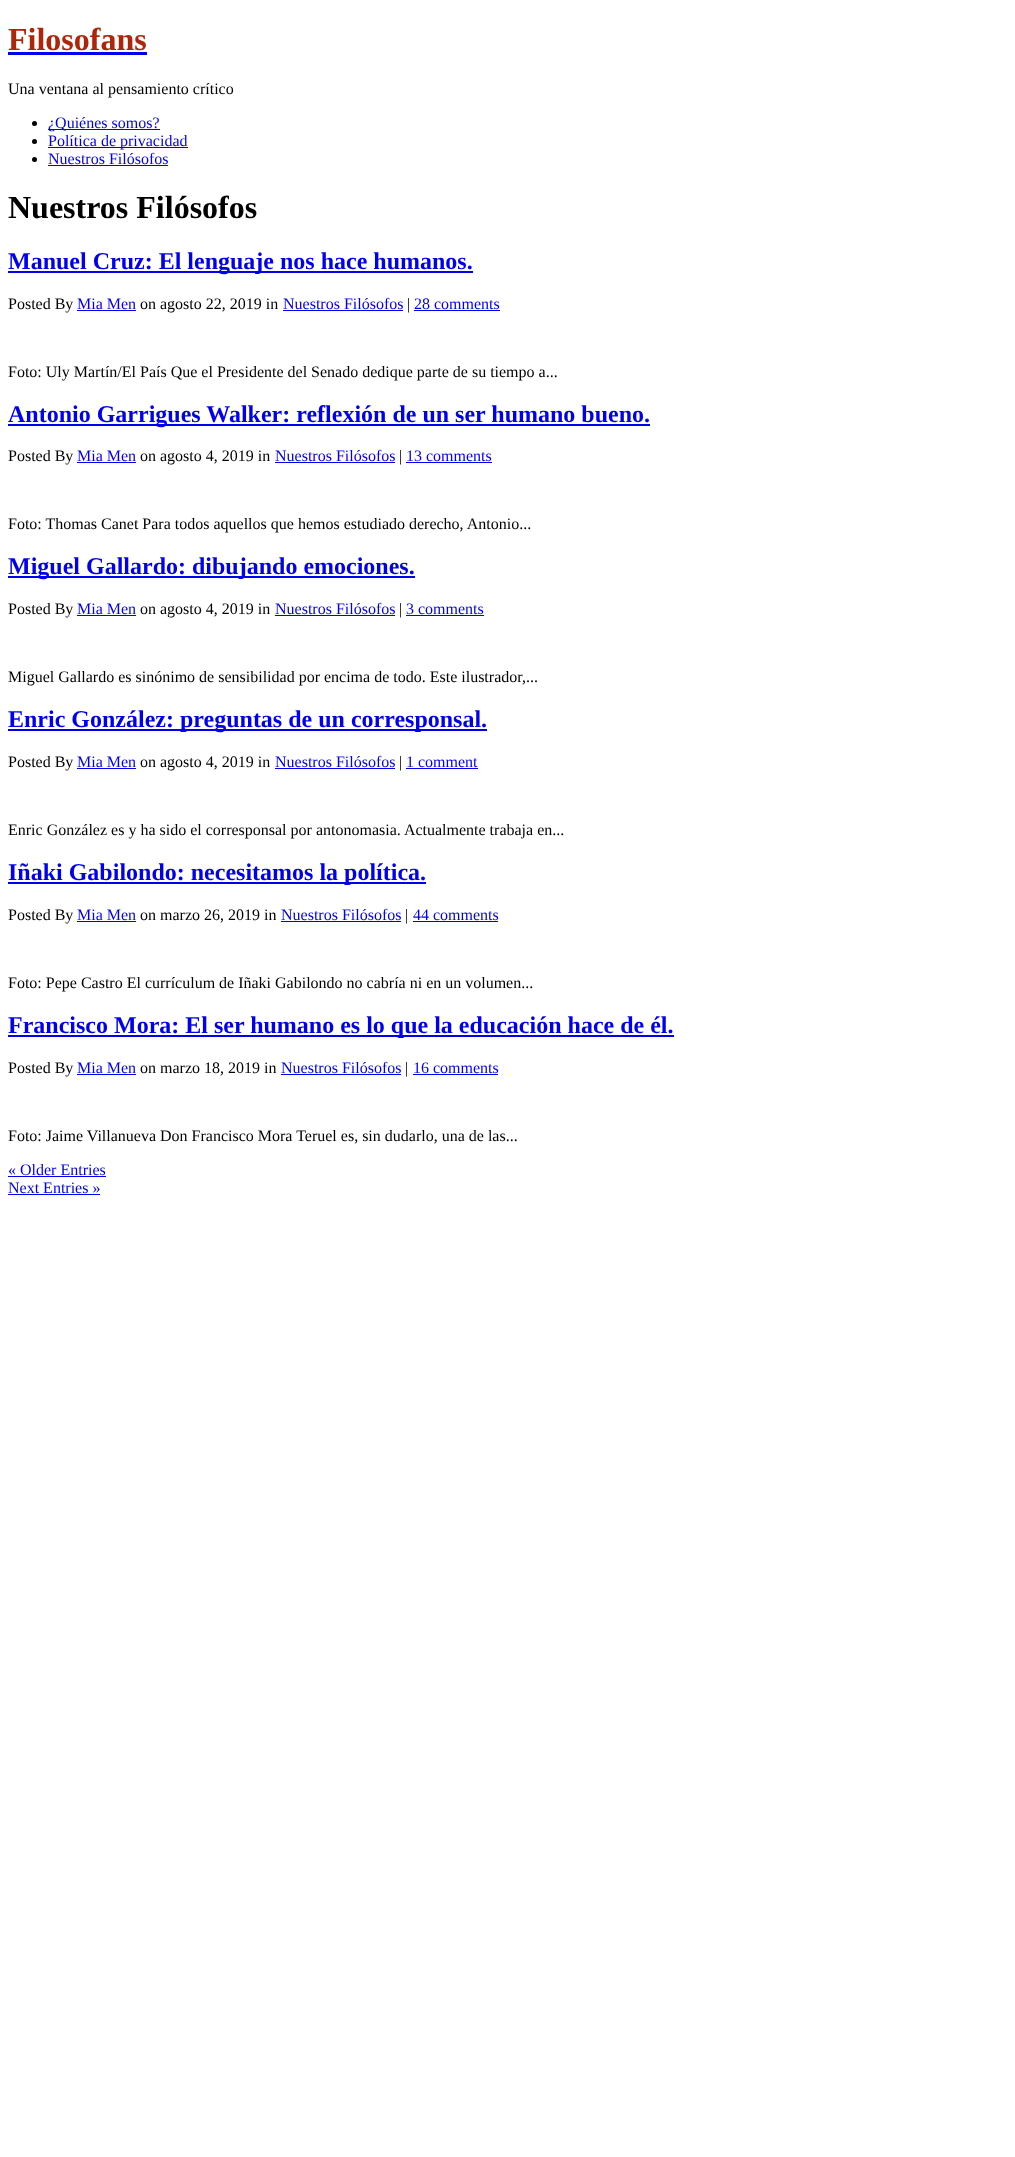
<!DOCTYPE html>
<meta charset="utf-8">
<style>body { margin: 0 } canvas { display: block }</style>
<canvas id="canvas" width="1015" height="2157"></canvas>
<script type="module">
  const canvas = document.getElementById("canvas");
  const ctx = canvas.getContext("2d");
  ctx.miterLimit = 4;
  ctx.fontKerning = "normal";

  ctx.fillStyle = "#ffffff";
  ctx.fillRect(0, 0, 1015, 2157);
  ctx.font = "bold 32px Liberation Serif";
  ctx.fillStyle = "#ad2609";
  ctx.fillText("Filosofans", 8, 50);
  ctx.fillStyle = "#0000ee";
  ctx.fillRect(8, 52, 139, 3);
  ctx.font = "16px Liberation Serif";
  ctx.fillStyle = "#000000";
  ctx.fillText("Una ventana al pensamiento crítico", 8, 94);
  ctx.beginPath();
  ctx.arc(34.5, 123.5, 2.5, 0, Math.PI * 2);
  ctx.fill();
  ctx.fillStyle = "#0000ee";
  ctx.fillRect(48, 129, 112, 1);
  ctx.fillText("¿Quiénes somos?", 48, 128);
  ctx.fillStyle = "#000000";
  ctx.beginPath();
  ctx.arc(34.5, 141.5, 2.5, 0, Math.PI * 2);
  ctx.fill();
  ctx.fillStyle = "#0000ee";
  ctx.fillRect(48, 147, 140, 1);
  ctx.fillText("Política de privacidad", 48, 146);
  ctx.fillStyle = "#000000";
  ctx.beginPath();
  ctx.arc(34.5, 159.5, 2.5, 0, Math.PI * 2);
  ctx.fill();
  ctx.fillStyle = "#0000ee";
  ctx.fillText("Nuestros Filósofos", 48, 164);
  ctx.fillRect(48, 165, 120, 1);
  ctx.font = "bold 32px Liberation Serif";
  ctx.fillStyle = "#000000";
  ctx.fillText("Nuestros Filósofos", 8, 218);
  ctx.fillStyle = "#0000ee";
  ctx.fillRect(8, 271, 465, 2);
  ctx.font = "bold 24px Liberation Serif";
  ctx.fillText("Manuel Cruz: El lenguaje nos hace humanos.", 8, 269);
  ctx.font = "16px Liberation Serif";
  ctx.fillStyle = "#000000";
  ctx.fillText("Posted By", 8, 309);
  ctx.fillStyle = "#0000ee";
  ctx.fillText("Mia Men", 77, 309);
  ctx.fillRect(77, 310, 59, 1);
  ctx.fillStyle = "#000000";
  ctx.fillText("on agosto 22, 2019 in", 140, 309);
  ctx.fillStyle = "#0000ee";
  ctx.fillText("Nuestros Filósofos", 283, 309);
  ctx.fillRect(283, 310, 120, 1);
  ctx.fillStyle = "#000000";
  ctx.fillText("|", 407, 309);
  ctx.fillStyle = "#0000ee";
  ctx.fillText("28 comments", 414, 309);
  ctx.fillRect(414, 310, 86, 1);
  ctx.fillStyle = "#000000";
  ctx.fillText("Foto: Uly Martín/El País Que el Presidente del Senado dedique parte de su tiempo a...", 8, 377);
  ctx.fillStyle = "#0000ee";
  ctx.fillRect(8, 424, 642, 2);
  ctx.font = "bold 24px Liberation Serif";
  ctx.fillText("Antonio Garrigues Walker: reflexión de un ser humano bueno.", 8, 422);
  ctx.font = "16px Liberation Serif";
  ctx.fillStyle = "#000000";
  ctx.fillText("Posted By", 8, 461);
  ctx.fillStyle = "#0000ee";
  ctx.fillText("Mia Men", 77, 461);
  ctx.fillRect(77, 462, 59, 1);
  ctx.fillStyle = "#000000";
  ctx.fillText("on agosto 4, 2019 in", 140, 461);
  ctx.fillStyle = "#0000ee";
  ctx.fillText("Nuestros Filósofos", 275, 461);
  ctx.fillRect(275, 462, 120, 1);
  ctx.fillStyle = "#000000";
  ctx.fillText("|", 399, 461);
  ctx.fillStyle = "#0000ee";
  ctx.fillText("13 comments", 406, 461);
  ctx.fillRect(406, 462, 86, 1);
  ctx.fillStyle = "#000000";
  ctx.fillText("Foto: Thomas Canet Para todos aquellos que hemos estudiado derecho, Antonio...", 8, 529);
  ctx.fillStyle = "#0000ee";
  ctx.fillRect(8, 576, 407, 2);
  ctx.font = "bold 24px Liberation Serif";
  ctx.fillText("Miguel Gallardo: dibujando emociones.", 8, 574);
  ctx.font = "16px Liberation Serif";
  ctx.fillStyle = "#000000";
  ctx.fillText("Posted By", 8, 614);
  ctx.fillStyle = "#0000ee";
  ctx.fillText("Mia Men", 77, 614);
  ctx.fillRect(77, 615, 59, 1);
  ctx.fillStyle = "#000000";
  ctx.fillText("on agosto 4, 2019 in", 140, 614);
  ctx.fillStyle = "#0000ee";
  ctx.fillText("Nuestros Filósofos", 275, 614);
  ctx.fillRect(275, 615, 120, 1);
  ctx.fillStyle = "#000000";
  ctx.fillText("|", 399, 614);
  ctx.fillStyle = "#0000ee";
  ctx.fillText("3 comments", 406, 614);
  ctx.fillRect(406, 615, 78, 1);
  ctx.fillStyle = "#000000";
  ctx.fillText("Miguel Gallardo es sinónimo de sensibilidad por encima de todo. Este ilustrador,...", 8, 682);
  ctx.fillStyle = "#0000ee";
  ctx.fillRect(8, 729, 479, 2);
  ctx.font = "bold 24px Liberation Serif";
  ctx.fillText("Enric González: preguntas de un corresponsal.", 8, 727);
  ctx.font = "16px Liberation Serif";
  ctx.fillStyle = "#000000";
  ctx.fillText("Posted By", 8, 767);
  ctx.fillStyle = "#0000ee";
  ctx.fillText("Mia Men", 77, 767);
  ctx.fillRect(77, 768, 59, 1);
  ctx.fillStyle = "#000000";
  ctx.fillText("on agosto 4, 2019 in", 140, 767);
  ctx.fillStyle = "#0000ee";
  ctx.fillText("Nuestros Filósofos", 275, 767);
  ctx.fillRect(275, 768, 120, 1);
  ctx.fillStyle = "#000000";
  ctx.fillText("|", 399, 767);
  ctx.fillStyle = "#0000ee";
  ctx.fillText("1 comment", 406, 767);
  ctx.fillRect(406, 768, 72, 1);
  ctx.fillStyle = "#000000";
  ctx.fillText("Enric González es y ha sido el corresponsal por antonomasia. Actualmente trabaja en...", 8, 835);
  ctx.fillStyle = "#0000ee";
  ctx.fillRect(8, 882, 418, 2);
  ctx.font = "bold 24px Liberation Serif";
  ctx.fillText("Iñaki Gabilondo: necesitamos la política.", 8, 880);
  ctx.font = "16px Liberation Serif";
  ctx.fillStyle = "#000000";
  ctx.fillText("Posted By", 8, 920);
  ctx.fillStyle = "#0000ee";
  ctx.fillText("Mia Men", 77, 920);
  ctx.fillRect(77, 921, 59, 1);
  ctx.fillStyle = "#000000";
  ctx.fillText("on marzo 26, 2019 in", 140, 920);
  ctx.fillStyle = "#0000ee";
  ctx.fillText("Nuestros Filósofos", 281, 920);
  ctx.fillRect(281, 921, 120, 1);
  ctx.fillStyle = "#000000";
  ctx.fillText("|", 405, 920);
  ctx.fillStyle = "#0000ee";
  ctx.fillText("44 comments", 413, 920);
  ctx.fillRect(413, 921, 85, 1);
  ctx.fillStyle = "#000000";
  ctx.fillText("Foto: Pepe Castro El currículum de Iñaki Gabilondo no cabría ni en un volumen...", 8, 988);
  ctx.fillStyle = "#0000ee";
  ctx.fillRect(8, 1035, 666, 2);
  ctx.font = "bold 24px Liberation Serif";
  ctx.fillText("Francisco Mora: El ser humano es lo que la educación hace de él.", 8, 1033);
  ctx.font = "16px Liberation Serif";
  ctx.fillStyle = "#000000";
  ctx.fillText("Posted By", 8, 1073);
  ctx.fillStyle = "#0000ee";
  ctx.fillText("Mia Men", 77, 1073);
  ctx.fillRect(77, 1074, 59, 1);
  ctx.fillStyle = "#000000";
  ctx.fillText("on marzo 18, 2019 in", 140, 1073);
  ctx.fillStyle = "#0000ee";
  ctx.fillText("Nuestros Filósofos", 281, 1073);
  ctx.fillRect(281, 1074, 120, 1);
  ctx.fillStyle = "#000000";
  ctx.fillText("|", 405, 1073);
  ctx.fillStyle = "#0000ee";
  ctx.fillText("16 comments", 413, 1073);
  ctx.fillRect(413, 1074, 85, 1);
  ctx.fillStyle = "#000000";
  ctx.fillText("Foto: Jaime Villanueva Don Francisco Mora Teruel es, sin dudarlo, una de las...", 8, 1141);
  ctx.fillStyle = "#0000ee";
  ctx.fillText("« Older Entries", 8, 1175);
  ctx.fillRect(8, 1176, 98, 1);
  ctx.fillText("Next Entries »", 8, 1193);
  ctx.fillRect(8, 1194, 92, 1);
</script>
